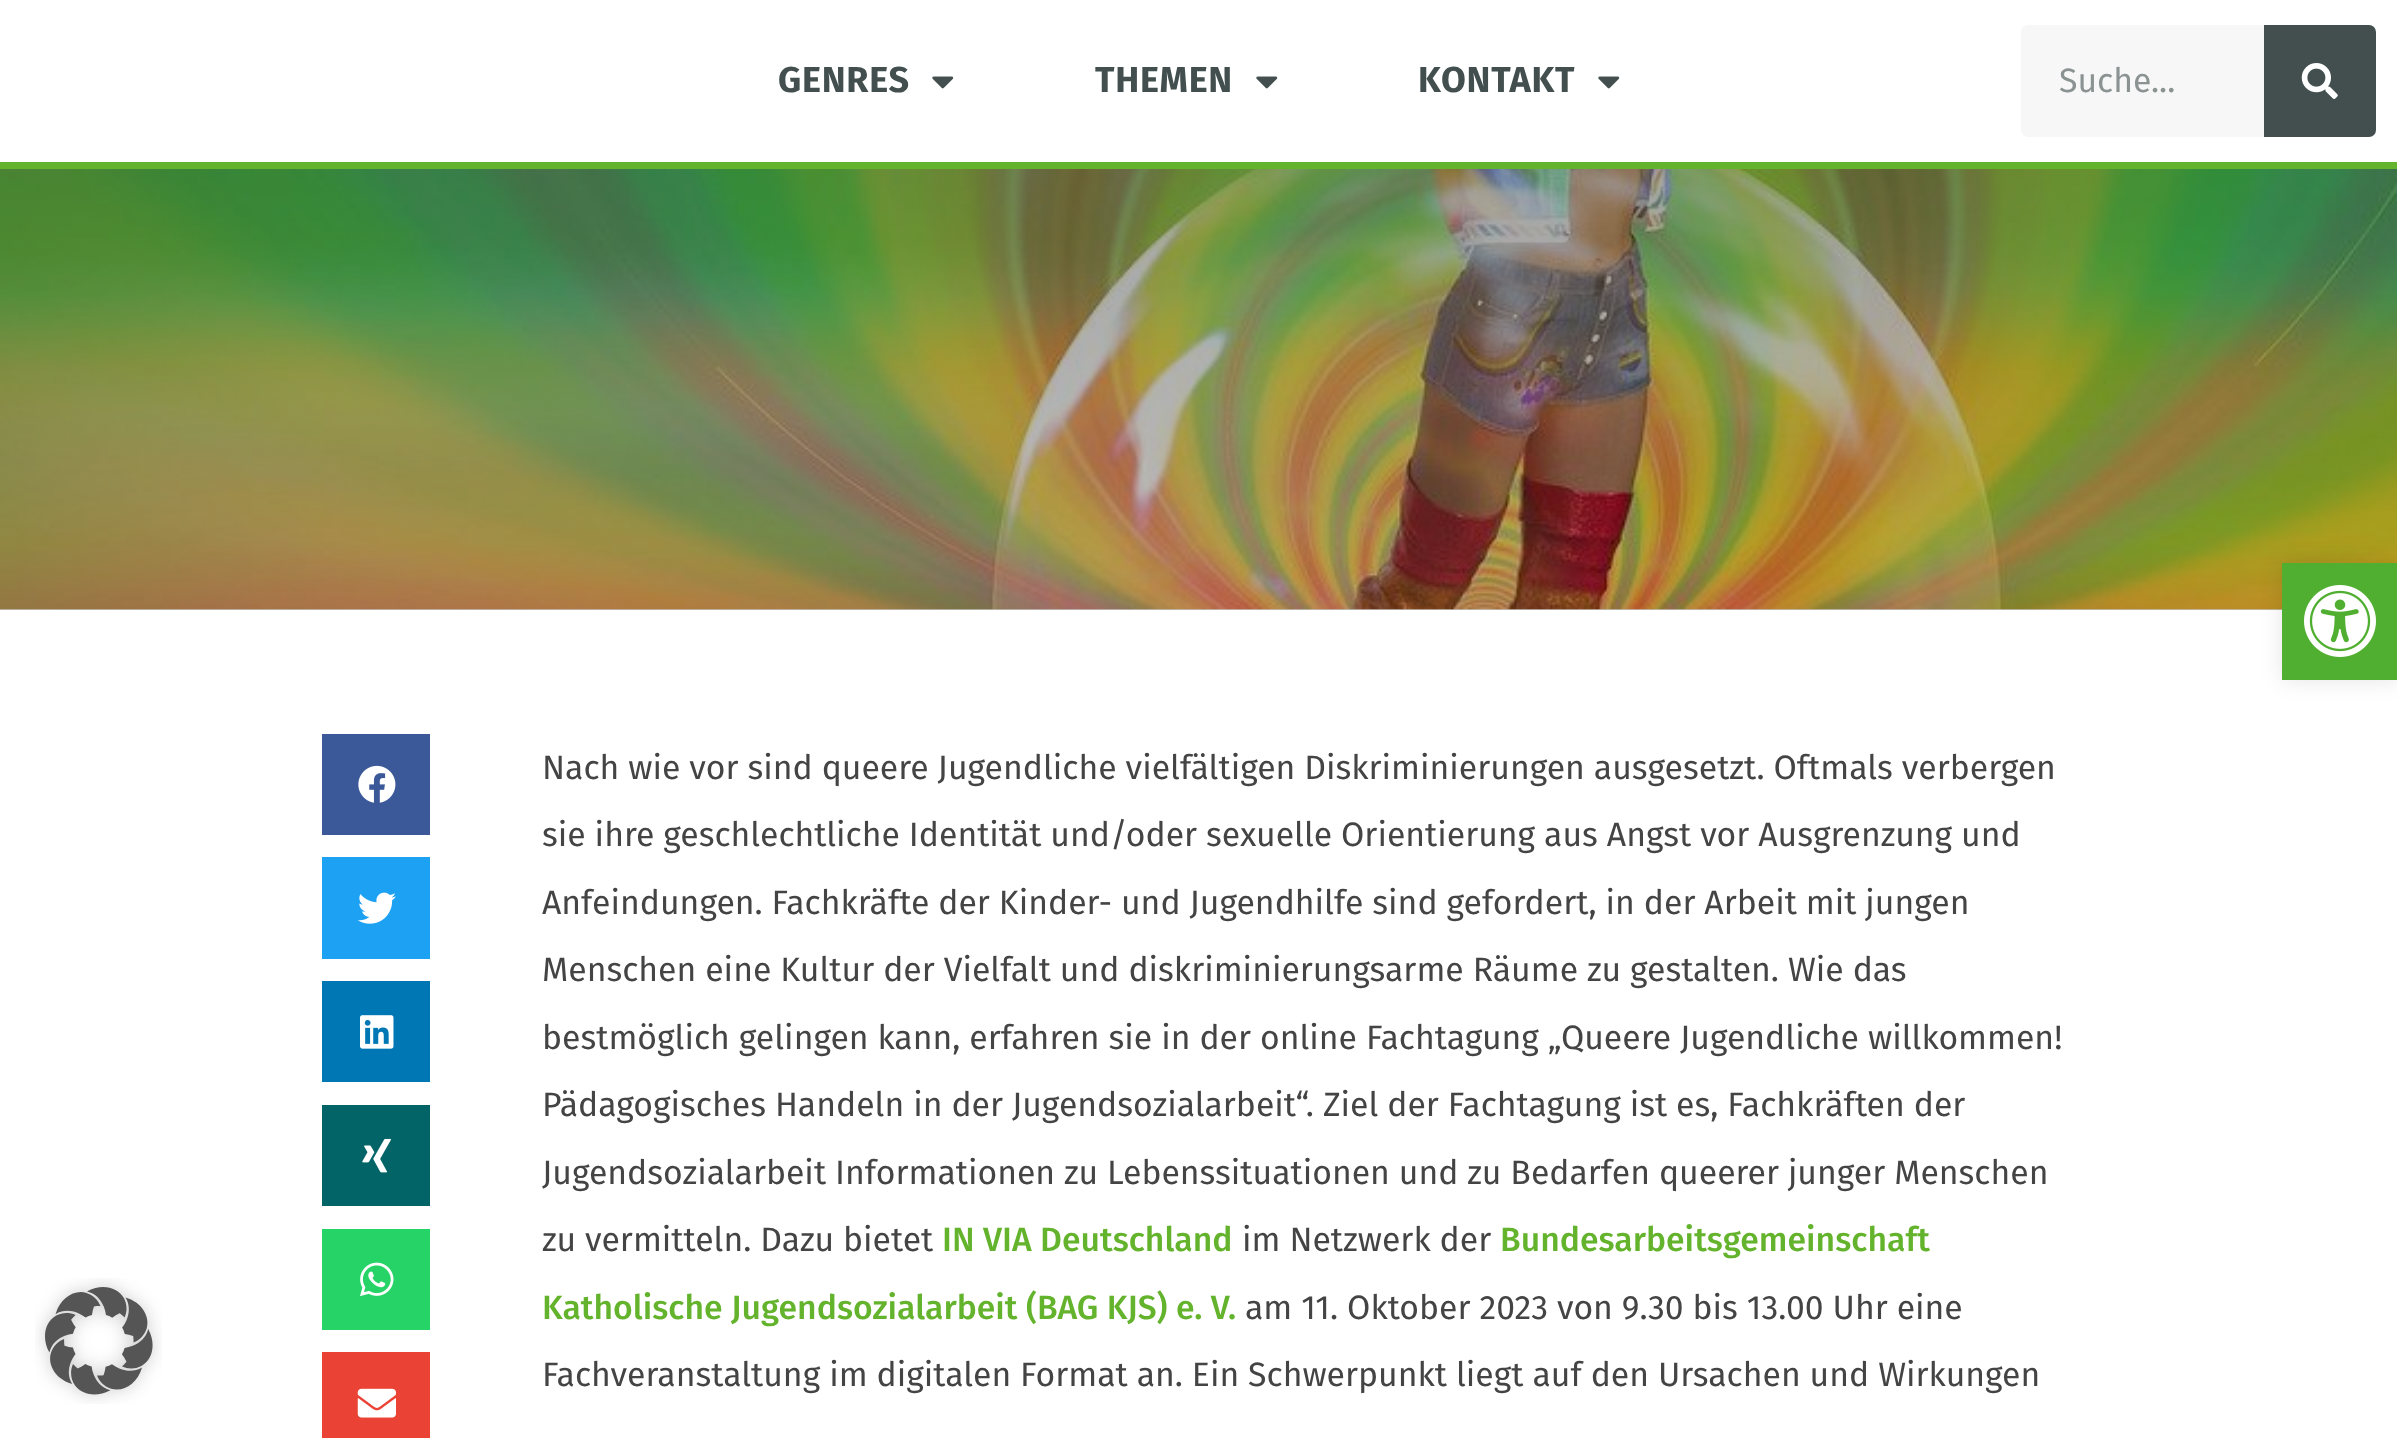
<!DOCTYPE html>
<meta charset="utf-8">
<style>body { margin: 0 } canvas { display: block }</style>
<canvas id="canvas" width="2397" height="1438"></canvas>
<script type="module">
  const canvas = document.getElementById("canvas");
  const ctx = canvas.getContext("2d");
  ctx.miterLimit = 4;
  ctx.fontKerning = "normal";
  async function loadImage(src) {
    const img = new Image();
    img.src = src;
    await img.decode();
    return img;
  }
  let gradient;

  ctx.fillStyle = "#ffffff";
  ctx.fillRect(0, 0, 2397, 1438);
  ctx.fillStyle = "#64b32c";
  ctx.fillRect(0, 162, 2397, 7);
  ctx.letterSpacing = "0.75px";
  ctx.font = "bold 36px Fira Sans";
  ctx.fillStyle = "#434f4f";
  ctx.fillText("GENRES", 778, 92);
  ctx.drawImage(await loadImage("img1.png"), 932, 76, 22, 13);
  ctx.fillText("THEMEN", 1095, 92);
  ctx.drawImage(await loadImage("img1.png"), 1256, 76, 22, 13);
  ctx.fillText("KONTAKT", 1418, 92);
  ctx.drawImage(await loadImage("img1.png"), 1598, 76, 22, 13);
  ctx.fillStyle = "#f7f7f7";
  ctx.beginPath();
  ctx.roundRect(2021, 25, 355, 112, 7);
  ctx.fill();
  ctx.letterSpacing = "0px";
  ctx.font = "33.75px Fira Sans";
  ctx.fillStyle = "#8b9292";
  ctx.fillText("Suche...", 2059, 92);
  ctx.fillStyle = "#434f4f";
  ctx.beginPath();
  ctx.roundRect(2264, 25, 112, 112, [0, 7, 7, 0]);
  ctx.fill();
  ctx.drawImage(await loadImage("img2.png"), 2301, 63, 37, 36);
  ctx.drawImage(await loadImage("img5.png"), 0, 169, 2397, 441);
  gradient = ctx.createLinearGradient(1199, -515, 1199, 610);
  gradient.addColorStop(0, "rgba(0, 0, 0, 0.5)");
  gradient.addColorStop(1, "rgba(0, 0, 0, 0.25)");
  ctx.fillStyle = gradient;
  ctx.fillRect(0, 169, 2397, 441);
  ctx.fillStyle = "rgba(0, 0, 0, 0.1)";
  ctx.filter = "blur(11px)";
  ctx.beginPath();
  ctx.rect(2282, 563, 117, 117);
  ctx.fill();
  ctx.filter = "none";
  ctx.fillStyle = "#50af31";
  ctx.fillRect(2282, 563, 115, 117);
  ctx.drawImage(await loadImage("img3.png"), 2304, 585, 72, 72);
  ctx.drawImage(await loadImage("img4.png"), 35, 1278, 127, 126);
  ctx.fillStyle = "#3b5998";
  ctx.fillRect(322, 734, 108, 101);
  ctx.drawImage(await loadImage("img6.png"), 358, 765, 38, 38);
  ctx.fillStyle = "#1da1f2";
  ctx.fillRect(322, 857, 108, 102);
  ctx.drawImage(await loadImage("img7.png"), 358, 892, 38, 32);
  ctx.fillStyle = "#0077b5";
  ctx.fillRect(322, 981, 108, 101);
  ctx.drawImage(await loadImage("img8.png"), 360, 1015, 34, 34);
  ctx.fillStyle = "#026466";
  ctx.fillRect(322, 1105, 108, 101);
  ctx.drawImage(await loadImage("img9.png"), 362, 1138, 29, 35);
  ctx.fillStyle = "#25d366";
  ctx.fillRect(322, 1229, 108, 101);
  ctx.drawImage(await loadImage("img10.png"), 360, 1262, 34, 35);
  ctx.fillStyle = "#ea4335";
  ctx.fillRect(322, 1352, 108, 86);
  ctx.drawImage(await loadImage("img11.png"), 357, 1388, 39, 30);
  ctx.fillStyle = "#444444";
  ctx.fillText("Nach wie vor sind queere Jugendliche vielfältigen Diskriminierungen ausgesetzt. Oftmals verbergen", 542, 779);
  ctx.fillText("sie ihre geschlechtliche Identität und/oder sexuelle Orientierung aus Angst vor Ausgrenzung und", 542, 846);
  ctx.fillText("Anfeindungen. Fachkräfte der Kinder- und Jugendhilfe sind gefordert, in der Arbeit mit jungen", 542, 914);
  ctx.fillText("Menschen eine Kultur der Vielfalt und diskriminierungsarme Räume zu gestalten. Wie das", 542, 981);
  ctx.fillText("bestmöglich gelingen kann, erfahren sie in der online Fachtagung „Queere Jugendliche willkommen!", 542, 1049);
  ctx.fillText("Pädagogisches Handeln in der Jugendsozialarbeit“. Ziel der Fachtagung ist es, Fachkräften der", 542, 1116);
  ctx.fillText("Jugendsozialarbeit Informationen zu Lebenssituationen und zu Bedarfen queerer junger Menschen", 542, 1184);
  ctx.fillText("zu vermitteln. Dazu bietet", 542, 1251);
  ctx.font = "500 33.75px Fira Sans";
  ctx.fillStyle = "#64b32c";
  ctx.fillText("IN VIA Deutschland", 942, 1251);
  ctx.font = "33.75px Fira Sans";
  ctx.fillStyle = "#444444";
  ctx.fillText("im Netzwerk der", 1242, 1251);
  ctx.font = "500 33.75px Fira Sans";
  ctx.fillStyle = "#64b32c";
  ctx.fillText("Bundesarbeitsgemeinschaft", 1500, 1251);
  ctx.fillText("Katholische Jugendsozialarbeit (BAG KJS) e. V.", 542, 1319);
  ctx.font = "33.75px Fira Sans";
  ctx.fillStyle = "#444444";
  ctx.fillText("am 11. Oktober 2023 von 9.30 bis 13.00 Uhr eine", 1245, 1319);
  ctx.fillText("Fachveranstaltung im digitalen Format an. Ein Schwerpunkt liegt auf den Ursachen und Wirkungen", 542, 1386);
</script>
